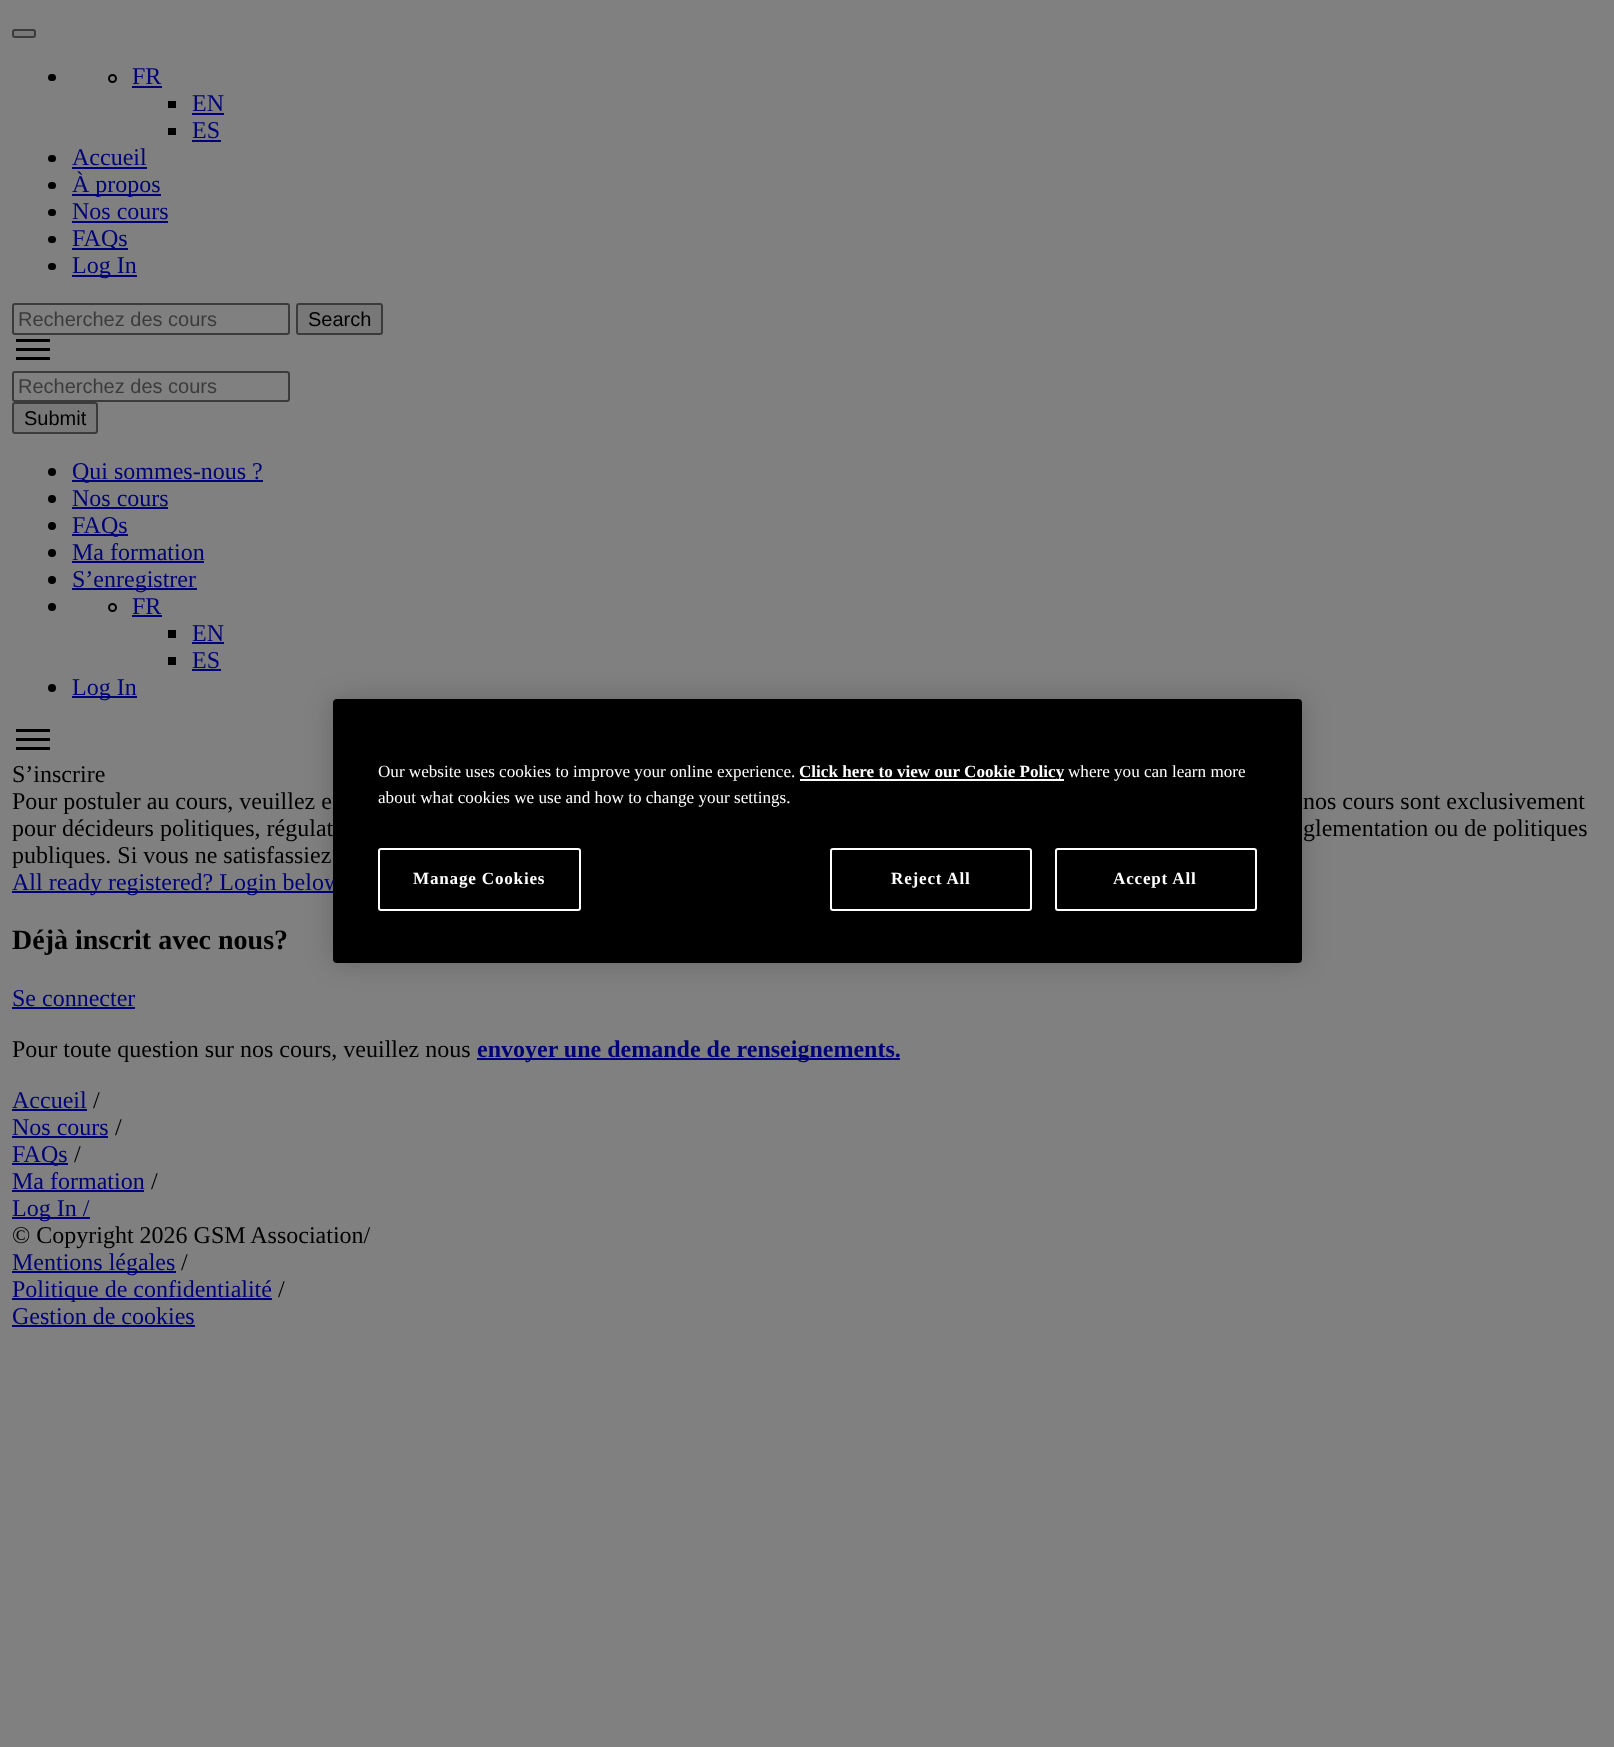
<!DOCTYPE html>
<meta charset="utf-8">
<style>body { margin: 0 } canvas { display: block }</style>
<canvas id="canvas" width="1614" height="1747"></canvas>
<script type="module">
  const canvas = document.getElementById("canvas");
  const ctx = canvas.getContext("2d");
  ctx.miterLimit = 4;
  ctx.fontKerning = "normal";

  ctx.fillStyle = "#808080";
  ctx.fillRect(0, 0, 1614, 1747);
  ctx.fillStyle = "#787878";
  ctx.beginPath();
  ctx.roundRect(13, 30, 22, 7, 2);
  ctx.fill();
  ctx.strokeStyle = "#3b3b3b";
  ctx.lineWidth = 2;
  ctx.stroke();
  ctx.fillStyle = "#000000";
  ctx.beginPath();
  ctx.roundRect(48, 74, 8, 7, 3.5);
  ctx.fill();
  ctx.beginPath();
  ctx.arc(112.5, 78.5, 3.5, 0, Math.PI * 2);
  ctx.strokeStyle = "#000000";
  ctx.stroke();
  ctx.font = "24px Liberation Serif";
  ctx.fillStyle = "#000077";
  ctx.fillText("FR", 132, 84);
  ctx.fillRect(132, 86, 30, 2);
  ctx.fillStyle = "#000000";
  ctx.fillRect(168, 101, 8, 7);
  ctx.fillStyle = "#000077";
  ctx.fillText("EN", 192, 111);
  ctx.fillRect(192, 113, 32, 2);
  ctx.fillStyle = "#000000";
  ctx.fillRect(168, 128, 8, 7);
  ctx.fillStyle = "#000077";
  ctx.fillText("ES", 192, 138);
  ctx.fillRect(192, 140, 29, 2);
  ctx.fillStyle = "#000000";
  ctx.beginPath();
  ctx.roundRect(48, 155, 8, 7, 3.5);
  ctx.fill();
  ctx.fillStyle = "#000077";
  ctx.fillText("Accueil", 72, 165);
  ctx.fillRect(72, 167, 75, 2);
  ctx.fillStyle = "#000000";
  ctx.beginPath();
  ctx.roundRect(48, 182, 8, 7, 3.5);
  ctx.fill();
  ctx.fillStyle = "#000077";
  ctx.fillRect(72, 194, 89, 2);
  ctx.fillText("À propos", 72, 192);
  ctx.fillStyle = "#000000";
  ctx.beginPath();
  ctx.roundRect(48, 209, 8, 7, 3.5);
  ctx.fill();
  ctx.fillStyle = "#000077";
  ctx.fillText("Nos cours", 72, 219);
  ctx.fillRect(72, 221, 96, 2);
  ctx.fillStyle = "#000000";
  ctx.beginPath();
  ctx.roundRect(48, 236, 8, 7, 3.5);
  ctx.fill();
  ctx.fillStyle = "#000077";
  ctx.fillRect(72, 248, 56, 2);
  ctx.fillText("FAQs", 72, 246);
  ctx.fillStyle = "#000000";
  ctx.beginPath();
  ctx.roundRect(48, 263, 8, 7, 3.5);
  ctx.fill();
  ctx.fillStyle = "#000077";
  ctx.fillRect(72, 275, 65, 2);
  ctx.fillText("Log In", 72, 273);
  ctx.beginPath();
  ctx.roundRect(13, 304, 276, 30, 2);
  ctx.strokeStyle = "#3b3b3b";
  ctx.stroke();
  ctx.font = "20px Liberation Sans";
  ctx.fillStyle = "#3b3b3b";
  ctx.fillText("Recherchez des cours", 18, 326);
  ctx.fillStyle = "#787878";
  ctx.beginPath();
  ctx.roundRect(297, 304, 85, 30, 2);
  ctx.fill();
  ctx.stroke();
  ctx.fillStyle = "#000000";
  ctx.fillText("Search", 308, 326);
  ctx.fillRect(16, 339, 34, 3);
  ctx.fillRect(16, 348, 34, 3);
  ctx.fillRect(16, 357, 34, 3);
  ctx.beginPath();
  ctx.roundRect(13, 372, 276, 29, 2);
  ctx.stroke();
  ctx.fillStyle = "#3b3b3b";
  ctx.fillText("Recherchez des cours", 18, 393);
  ctx.fillStyle = "#787878";
  ctx.beginPath();
  ctx.roundRect(13, 403, 84, 30, 2);
  ctx.fill();
  ctx.stroke();
  ctx.fillStyle = "#000000";
  ctx.fillText("Submit", 24, 425);
  ctx.beginPath();
  ctx.arc(52, 472, 4, 0, Math.PI * 2);
  ctx.fill();
  ctx.fillStyle = "#000077";
  ctx.fillRect(72, 480, 191, 2);
  ctx.font = "24px Liberation Serif";
  ctx.fillText("Qui sommes-nous ?", 72, 479);
  ctx.fillStyle = "#000000";
  ctx.beginPath();
  ctx.arc(52, 499, 4, 0, Math.PI * 2);
  ctx.fill();
  ctx.fillStyle = "#000077";
  ctx.fillText("Nos cours", 72, 506);
  ctx.fillRect(72, 507, 96, 2);
  ctx.fillStyle = "#000000";
  ctx.beginPath();
  ctx.arc(52, 526, 4, 0, Math.PI * 2);
  ctx.fill();
  ctx.fillStyle = "#000077";
  ctx.fillRect(72, 534, 56, 2);
  ctx.fillText("FAQs", 72, 533);
  ctx.fillStyle = "#000000";
  ctx.beginPath();
  ctx.arc(52, 553, 4, 0, Math.PI * 2);
  ctx.fill();
  ctx.fillStyle = "#000077";
  ctx.fillText("Ma formation", 72, 560);
  ctx.fillRect(72, 561, 132, 2);
  ctx.fillStyle = "#000000";
  ctx.beginPath();
  ctx.arc(52, 580, 4, 0, Math.PI * 2);
  ctx.fill();
  ctx.fillStyle = "#000077";
  ctx.fillRect(72, 588, 125, 2);
  ctx.fillText("S’enregistrer", 72, 587);
  ctx.fillStyle = "#000000";
  ctx.beginPath();
  ctx.arc(52, 607, 4, 0, Math.PI * 2);
  ctx.fill();
  ctx.beginPath();
  ctx.arc(112.5, 607.5, 3.5, 0, Math.PI * 2);
  ctx.strokeStyle = "#000000";
  ctx.stroke();
  ctx.fillStyle = "#000077";
  ctx.fillText("FR", 132, 614);
  ctx.fillRect(132, 615, 30, 2);
  ctx.fillStyle = "#000000";
  ctx.fillRect(168, 630, 8, 8);
  ctx.fillStyle = "#000077";
  ctx.fillText("EN", 192, 641);
  ctx.fillRect(192, 642, 32, 2);
  ctx.fillStyle = "#000000";
  ctx.fillRect(168, 657, 8, 8);
  ctx.fillStyle = "#000077";
  ctx.fillText("ES", 192, 668);
  ctx.fillRect(192, 669, 29, 2);
  ctx.fillStyle = "#000000";
  ctx.beginPath();
  ctx.arc(52, 688, 4, 0, Math.PI * 2);
  ctx.fill();
  ctx.fillStyle = "#000077";
  ctx.fillRect(72, 696, 65, 2);
  ctx.fillText("Log In", 72, 695);
  ctx.fillStyle = "#000000";
  ctx.fillRect(16, 729, 34, 3);
  ctx.fillRect(16, 738, 34, 3);
  ctx.fillRect(16, 747, 34, 3);
  ctx.fillText("S’inscrire", 12, 782);
  ctx.fillText("Pour postuler au cours, veuillez e", 12, 809);
  ctx.fillText("nos cours sont exclusivement", 1303, 809);
  ctx.fillText("pour décideurs politiques, régulat", 12, 836);
  ctx.fillText("glementation ou de politiques", 1303, 836);
  ctx.fillText("publiques. Si vous ne satisfassiez", 12, 863);
  ctx.fillStyle = "#000077";
  ctx.fillRect(12, 891, 329, 2);
  ctx.fillText("All ready registered? Login below", 12, 890);
  ctx.font = "bold 28px Liberation Serif";
  ctx.fillStyle = "#000000";
  ctx.fillText("Déjà inscrit avec nous?", 12, 949);
  ctx.font = "24px Liberation Serif";
  ctx.fillStyle = "#000077";
  ctx.fillText("Se connecter", 12, 1006);
  ctx.fillRect(12, 1007, 123, 2);
  ctx.fillStyle = "#000000";
  ctx.fillText("Pour toute question sur nos cours, veuillez nous", 12, 1057);
  ctx.fillStyle = "#000077";
  ctx.fillRect(477, 1058, 423, 2);
  ctx.font = "bold 24px Liberation Serif";
  ctx.fillText("envoyer une demande de renseignements.", 477, 1057);
  ctx.font = "24px Liberation Serif";
  ctx.fillText("Accueil", 12, 1108);
  ctx.fillRect(12, 1109, 75, 2);
  ctx.fillStyle = "#000000";
  ctx.fillText("/", 93, 1108);
  ctx.fillStyle = "#000077";
  ctx.fillText("Nos cours", 12, 1135);
  ctx.fillRect(12, 1136, 96, 2);
  ctx.fillStyle = "#000000";
  ctx.fillText("/", 115, 1135);
  ctx.fillStyle = "#000077";
  ctx.fillRect(12, 1163, 56, 2);
  ctx.fillText("FAQs", 12, 1162);
  ctx.fillStyle = "#000000";
  ctx.fillText("/", 74, 1162);
  ctx.fillStyle = "#000077";
  ctx.fillText("Ma formation", 12, 1189);
  ctx.fillRect(12, 1190, 132, 2);
  ctx.fillStyle = "#000000";
  ctx.fillText("/", 151, 1189);
  ctx.fillStyle = "#000077";
  ctx.fillRect(12, 1217, 78, 2);
  ctx.fillText("Log In /", 12, 1216);
  ctx.fillStyle = "#000000";
  ctx.fillText("© Copyright 2026 GSM Association/", 12, 1243);
  ctx.fillStyle = "#000077";
  ctx.fillRect(12, 1271, 164, 2);
  ctx.fillText("Mentions légales", 12, 1270);
  ctx.fillStyle = "#000000";
  ctx.fillText("/", 181, 1270);
  ctx.fillStyle = "#000077";
  ctx.fillRect(12, 1298, 260, 2);
  ctx.fillText("Politique de confidentialité", 12, 1297);
  ctx.fillStyle = "#000000";
  ctx.fillText("/", 278, 1297);
  ctx.fillStyle = "#000077";
  ctx.fillText("Gestion de cookies", 12, 1324);
  ctx.fillRect(12, 1325, 183, 2);
  ctx.fillStyle = "rgba(0, 0, 0, 0.2)";
  ctx.filter = "blur(13.5px)";
  ctx.beginPath();
  ctx.roundRect(333, 699, 969, 264, 4);
  ctx.fill();
  ctx.filter = "none";
  ctx.fillStyle = "#000000";
  ctx.beginPath();
  ctx.roundRect(333, 699, 969, 264, 4);
  ctx.fill();
  ctx.font = "17.1px Liberation Serif";
  ctx.fillStyle = "#ffffff";
  ctx.fillText("Our website uses cookies to improve your online experience.", 378, 777);
  ctx.fillRect(800, 779, 264, 2);
  ctx.font = "bold 17.1px Liberation Serif";
  ctx.fillText("Click here to view our Cookie Policy", 799, 777);
  ctx.font = "17.1px Liberation Serif";
  ctx.fillText("where you can learn more", 1068, 777);
  ctx.fillText("about what cookies we use and how to change your settings.", 378, 803);
  ctx.beginPath();
  ctx.roundRect(379, 849, 201, 61, 2);
  ctx.strokeStyle = "#ffffff";
  ctx.stroke();
  ctx.letterSpacing = "0.8px";
  ctx.font = "bold 17.1px Liberation Serif";
  ctx.fillText("Manage Cookies", 413, 884);
  ctx.beginPath();
  ctx.roundRect(831, 849, 200, 61, 2);
  ctx.stroke();
  ctx.fillText("Reject All", 891, 884);
  ctx.beginPath();
  ctx.roundRect(1056, 849, 200, 61, 2);
  ctx.stroke();
  ctx.fillText("Accept All", 1113, 884);
</script>
